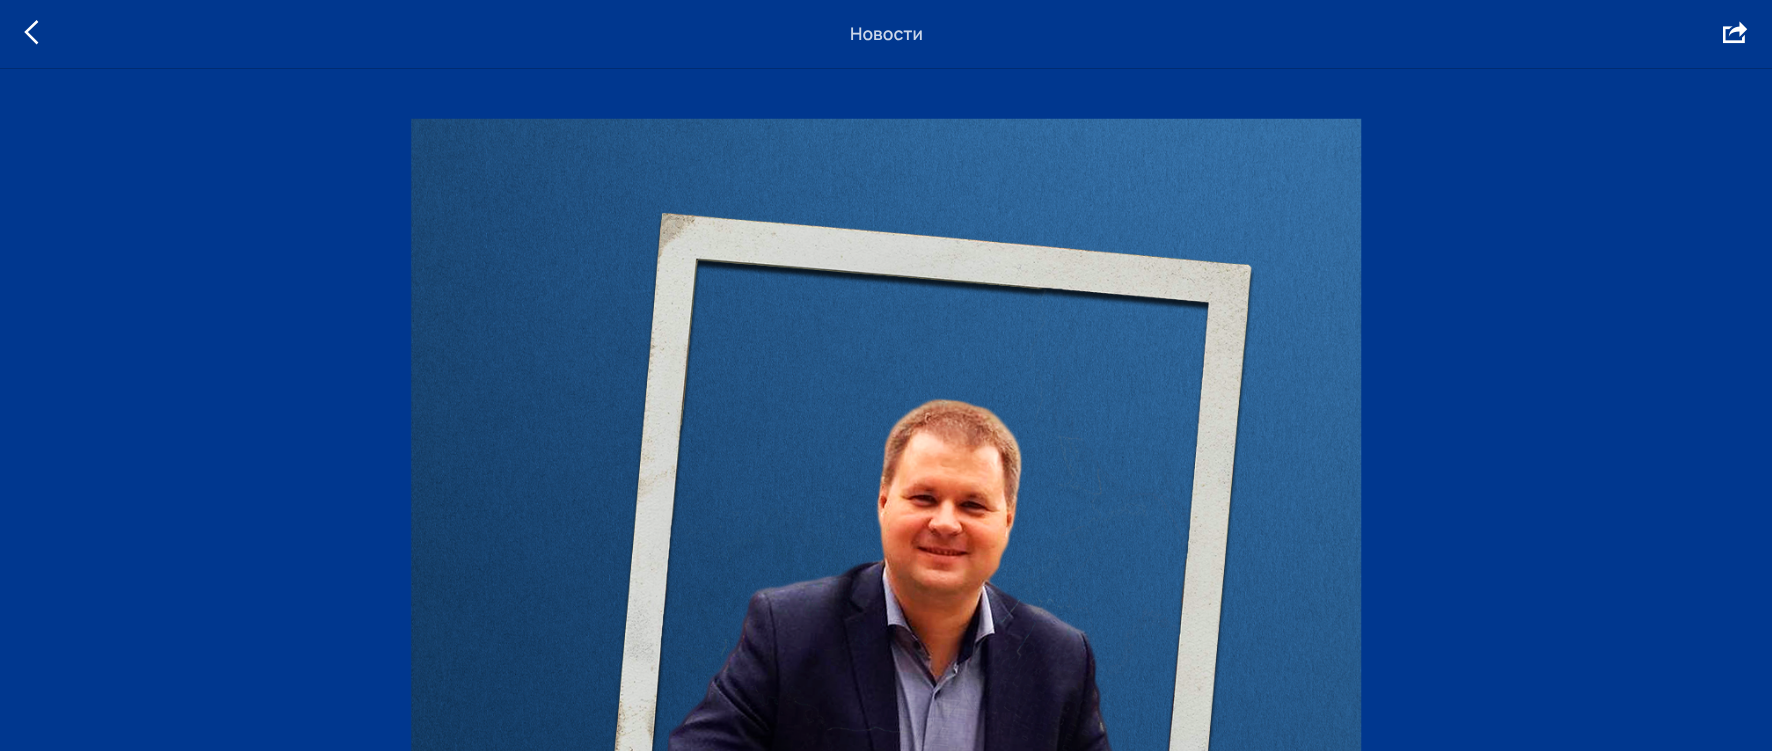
<!DOCTYPE html>
<meta charset="utf-8">
<style>body { margin: 0 } canvas { display: block }</style>
<canvas id="canvas" width="1772" height="751"></canvas>
<script type="module">
  const canvas = document.getElementById("canvas");
  const ctx = canvas.getContext("2d");
  ctx.miterLimit = 4;
  ctx.fontKerning = "normal";
  async function loadImage(src) {
    const img = new Image();
    img.src = src;
    await img.decode();
    return img;
  }

  ctx.fillStyle = "#00378f";
  ctx.fillRect(0, 0, 1772, 751);
  ctx.fillStyle = "#002c72";
  ctx.fillRect(0, 68, 1772, 1);
  ctx.beginPath();
  ctx.moveTo(37.5, 43.5);
  ctx.lineTo(26, 32);
  ctx.lineTo(37.5, 21);
  ctx.strokeStyle = "#ffffff";
  ctx.lineWidth = 2.5;
  ctx.stroke();
  ctx.font = "600 17.5px Manrope";
  ctx.fillStyle = "#ccd7e9";
  ctx.fillText("Новости", 850, 40);
  ctx.drawImage(await loadImage("img1.png"), 1723, 21, 25, 23);
  ctx.drawImage(await loadImage("img2.png"), 411, 118, 951, 633);
</script>
